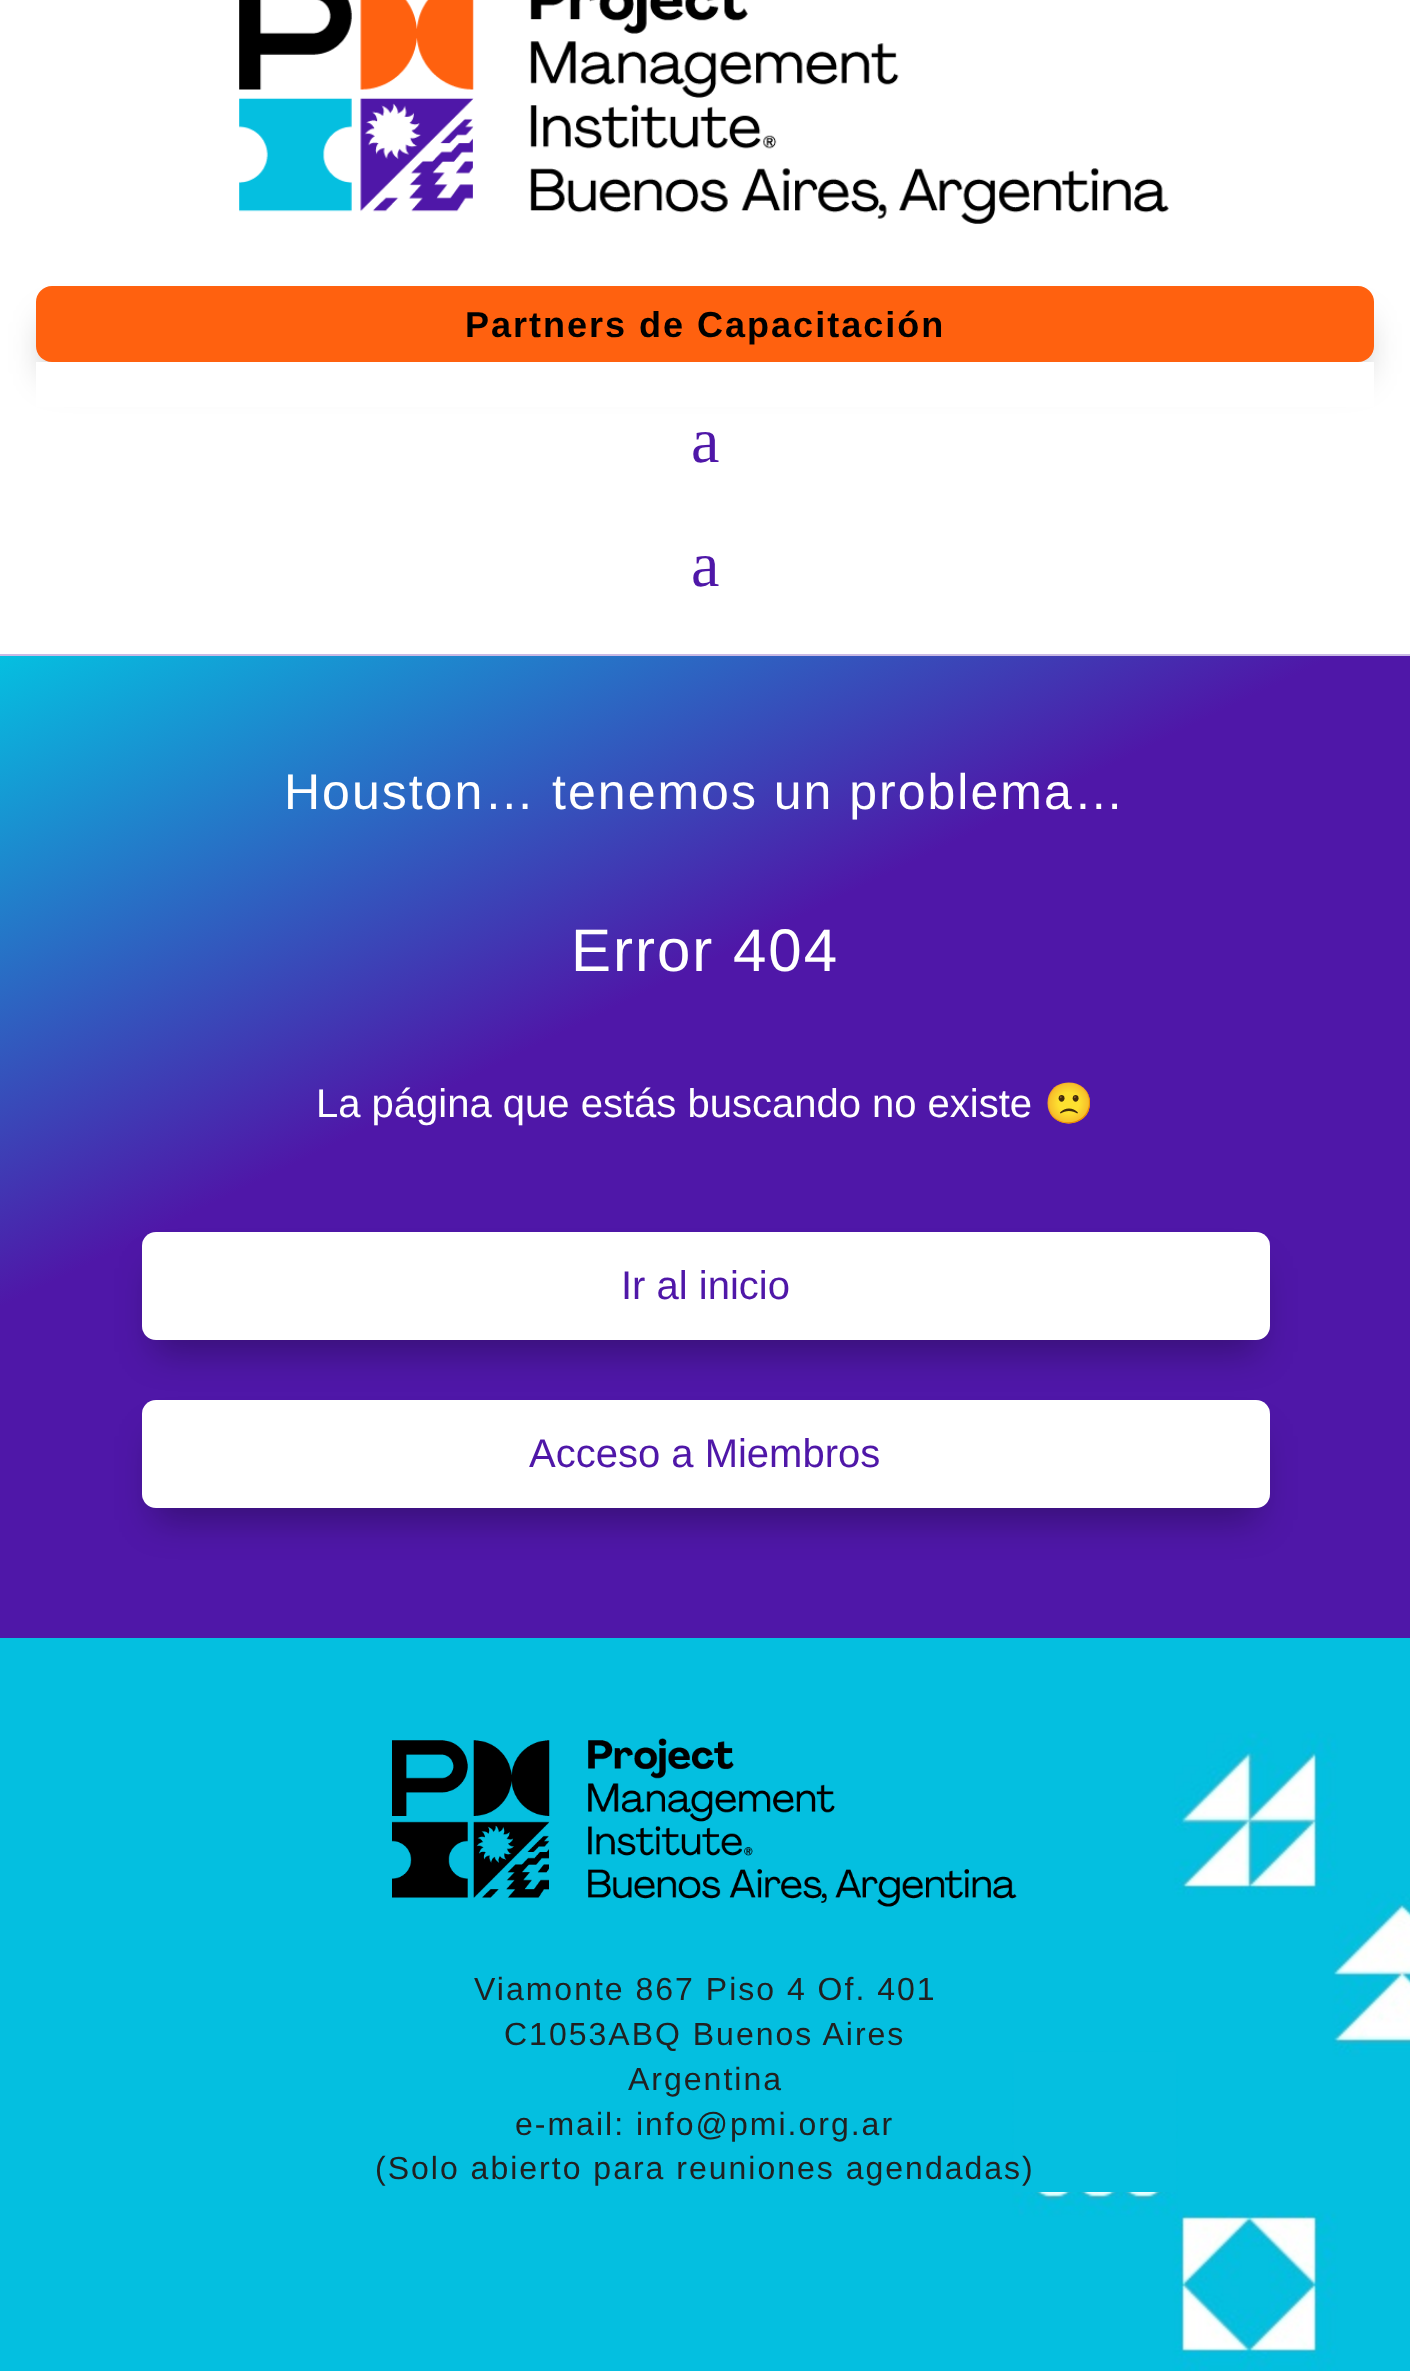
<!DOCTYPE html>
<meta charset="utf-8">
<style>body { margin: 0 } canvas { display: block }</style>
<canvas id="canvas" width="1410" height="2371"></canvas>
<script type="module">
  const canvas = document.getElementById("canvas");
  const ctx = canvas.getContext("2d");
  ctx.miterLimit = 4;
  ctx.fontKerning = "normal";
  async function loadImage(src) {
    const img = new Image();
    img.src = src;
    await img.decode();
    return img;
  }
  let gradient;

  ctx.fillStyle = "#ffffff";
  ctx.fillRect(0, 0, 1410, 2371);
  ctx.fillStyle = "#cab9e5";
  ctx.fillRect(0, 654, 1410, 2);
  ctx.drawImage(await loadImage("img1.png"), 239, 0, 930, 224);
  ctx.fillStyle = "rgba(0, 0, 0, 0.3)";
  ctx.filter = "blur(18px)";
  ctx.beginPath();
  ctx.roundRect(48, 322, 1314, 52, 4);
  ctx.fill();
  ctx.filter = "none";
  ctx.fillStyle = "#ff610f";
  ctx.beginPath();
  ctx.roundRect(36, 286, 1338, 76, 16);
  ctx.fill();
  ctx.letterSpacing = "2px";
  ctx.font = "bold 36px Liberation Sans";
  ctx.fillStyle = "#000000";
  ctx.fillText("Partners de Capacitación", 465, 337);
  ctx.fillStyle = "#ffffff";
  ctx.fillRect(36, 362, 1338, 45);
  ctx.letterSpacing = "0px";
  ctx.font = "64px Liberation Serif";
  ctx.fillStyle = "#4f17a8";
  ctx.fillText("a", 691, 462);
  ctx.fillText("a", 691, 586);
  gradient = ctx.createLinearGradient(376, 473, 1034, 1821);
  gradient.addColorStop(0, "#05bfe0");
  gradient.addColorStop(0.39, "#4f17a8");
  ctx.fillStyle = gradient;
  ctx.fillRect(0, 656, 1410, 982);
  ctx.letterSpacing = "2px";
  ctx.font = "50px Liberation Sans";
  ctx.fillStyle = "#ffffff";
  ctx.fillText("Houston… tenemos un problema…", 284, 809);
  ctx.font = "60px Liberation Sans";
  ctx.fillText("Error 404", 571, 971);
  ctx.letterSpacing = "0px";
  ctx.font = "40px Liberation Sans";
  ctx.fillText("La página que estás buscando no existe", 316, 1117);
  ctx.font = "40px Noto Color Emoji";
  ctx.fillText("🙁", 1044, 1117);
  ctx.fillStyle = "rgba(0, 0, 0, 0.3)";
  ctx.filter = "blur(18px)";
  ctx.beginPath();
  ctx.roundRect(154, 1268, 1104, 84, 2);
  ctx.fill();
  ctx.filter = "none";
  ctx.fillStyle = "#ffffff";
  ctx.beginPath();
  ctx.roundRect(142, 1232, 1128, 108, 14);
  ctx.fill();
  ctx.font = "40px Liberation Sans";
  ctx.fillStyle = "#4f17a8";
  ctx.fillText("Ir al inicio", 621, 1299);
  ctx.fillStyle = "rgba(0, 0, 0, 0.3)";
  ctx.filter = "blur(18px)";
  ctx.beginPath();
  ctx.roundRect(154, 1436, 1104, 84, 2);
  ctx.fill();
  ctx.filter = "none";
  ctx.fillStyle = "#ffffff";
  ctx.beginPath();
  ctx.roundRect(142, 1400, 1128, 108, 14);
  ctx.fill();
  ctx.fillStyle = "#4f17a8";
  ctx.fillText("Acceso a Miembros", 529, 1467);
  ctx.drawImage(await loadImage("img2.png"), 0, 1638, 1410, 733);
  ctx.drawImage(await loadImage("img3.png"), 392, 1738, 625, 169);
  ctx.fillStyle = "#05bfe0";
  ctx.fillRect(1014, 2052, 162, 140);
  ctx.letterSpacing = "2px";
  ctx.font = "32px Liberation Sans";
  ctx.fillStyle = "#212121";
  ctx.fillText("Viamonte 867 Piso 4 Of. 401", 474, 2000);
  ctx.fillText("C1053ABQ Buenos Aires", 504, 2045);
  ctx.fillText("Argentina", 628, 2090);
  ctx.fillText("e-mail: info@pmi.org.ar", 515, 2135);
  ctx.fillText("(Solo abierto para reuniones agendadas)", 375, 2179);
</script>
